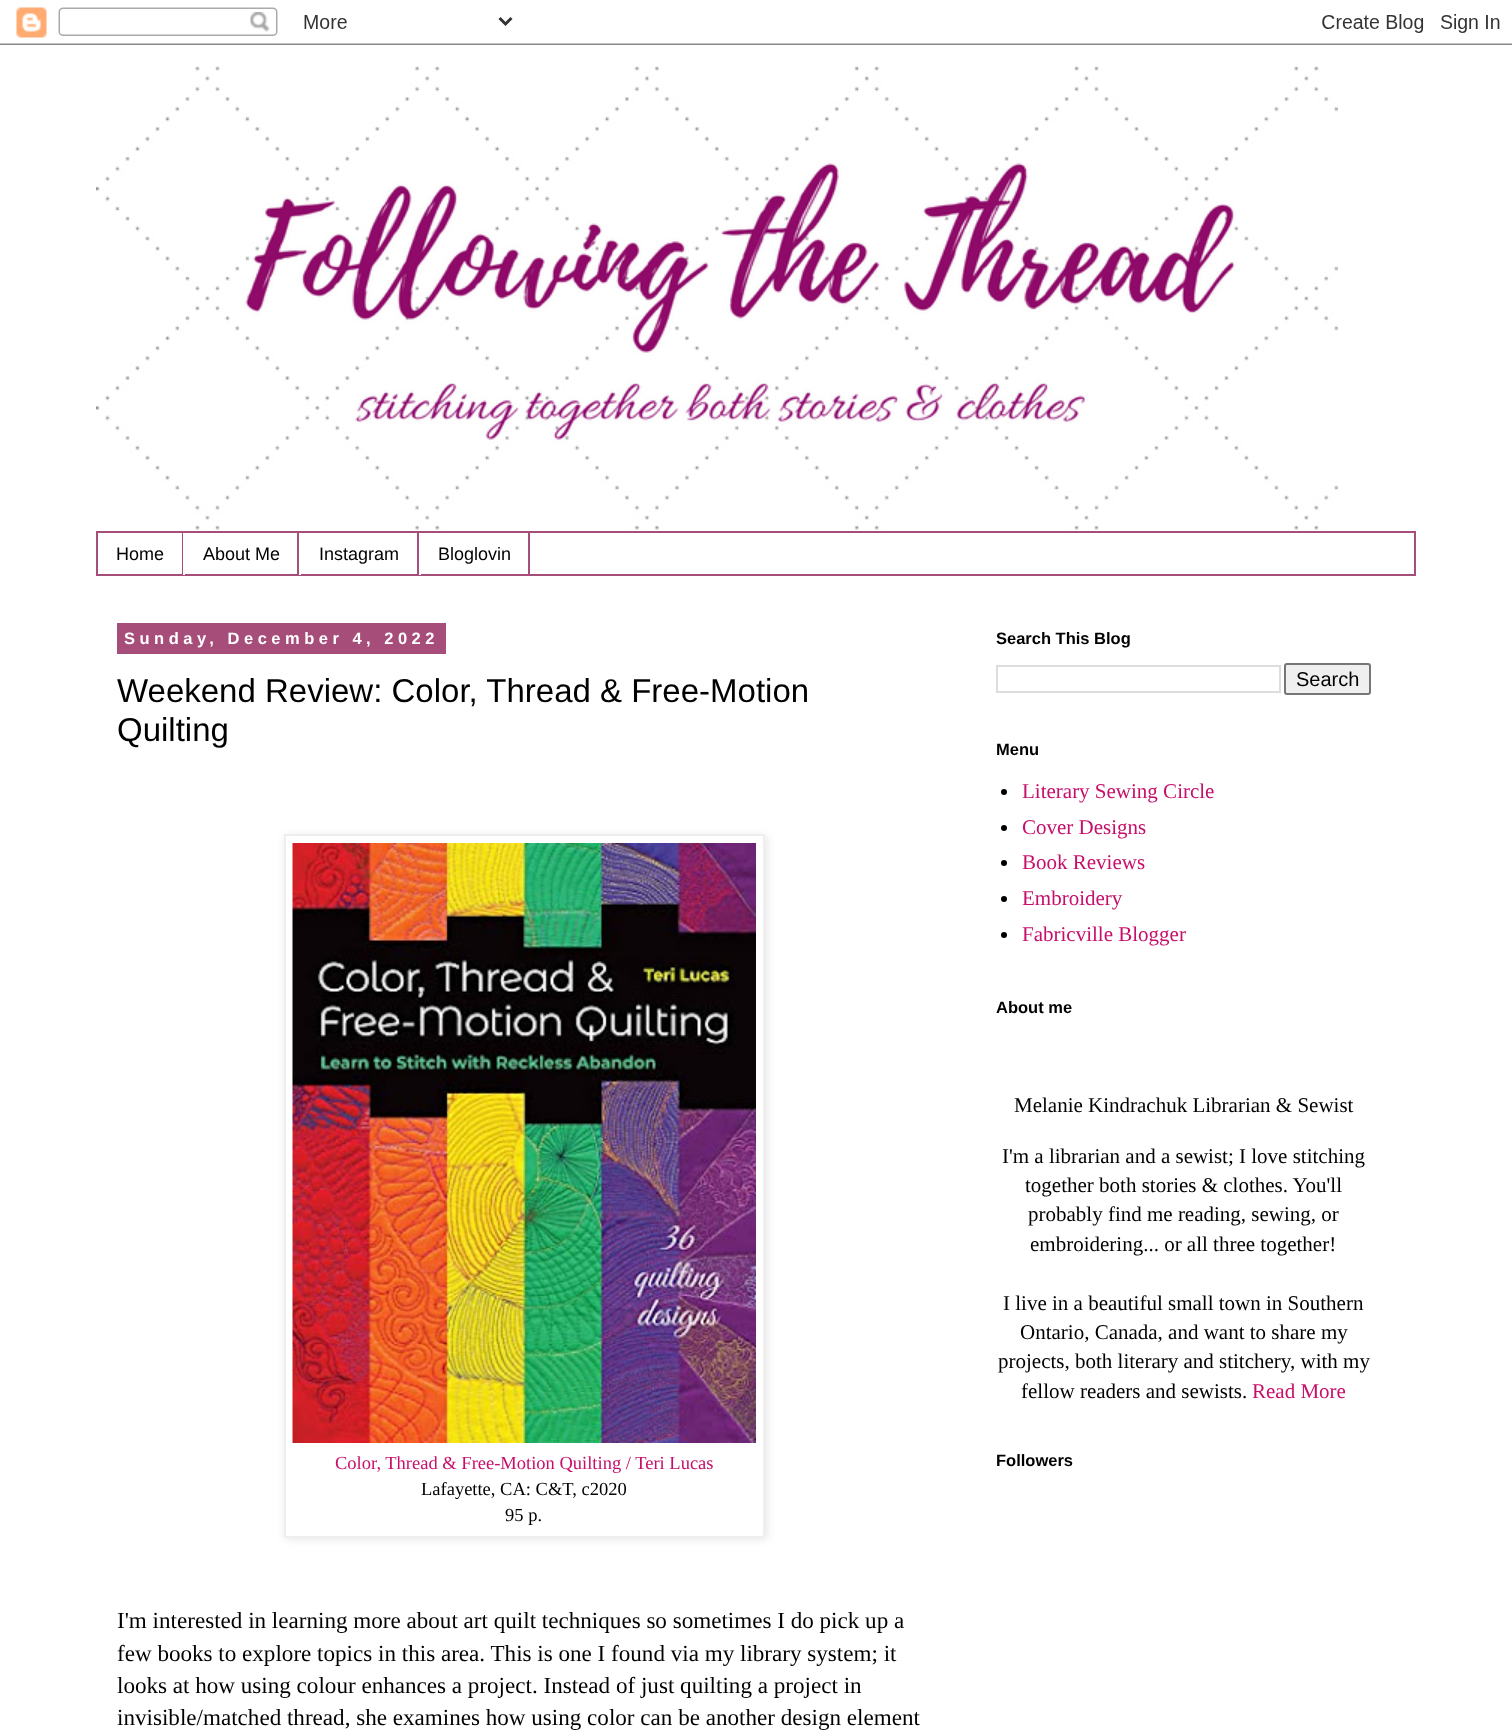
<!DOCTYPE html>
<meta charset="utf-8">
<style>body { margin: 0 } canvas { display: block }</style>
<canvas id="canvas" width="1512" height="1733"></canvas>
<script type="module">
  const canvas = document.getElementById("canvas");
  const ctx = canvas.getContext("2d");
  ctx.miterLimit = 4;
  ctx.fontKerning = "normal";
  async function loadImage(src) {
    const img = new Image();
    img.src = src;
    await img.decode();
    return img;
  }

  ctx.fillStyle = "#ffffff";
  ctx.fillRect(0, 0, 1512, 1733);
  ctx.drawImage(await loadImage("img1.png"), 0, 7, 1512, 38);
  ctx.drawImage(await loadImage("img2.png"), 96, 66, 1242, 464);
  ctx.strokeStyle = "#a64d79";
  ctx.lineWidth = 2;
  ctx.strokeRect(97, 532, 1318, 43);
  ctx.fillStyle = "#a64d79";
  ctx.fillRect(182, 533, 1, 42);
  ctx.font = "18px Liberation Sans";
  ctx.fillStyle = "#000000";
  ctx.fillText("Home", 116, 560);
  ctx.fillStyle = "#a64d79";
  ctx.fillRect(297, 533, 2, 42);
  ctx.fillStyle = "#ffffff";
  ctx.fillRect(183, 574, 2, 1);
  ctx.fillStyle = "#000000";
  ctx.fillText("About Me", 203, 560);
  ctx.fillStyle = "#a64d79";
  ctx.fillRect(417, 533, 2, 42);
  ctx.fillStyle = "#ffffff";
  ctx.fillRect(299, 574, 2, 1);
  ctx.fillStyle = "#000000";
  ctx.fillText("Instagram", 319, 560);
  ctx.fillStyle = "#a64d79";
  ctx.fillRect(528, 533, 2, 42);
  ctx.fillStyle = "#ffffff";
  ctx.fillRect(419, 574, 2, 1);
  ctx.fillStyle = "#000000";
  ctx.fillText("Bloglovin", 438, 560);
  ctx.fillStyle = "#a64d79";
  ctx.fillRect(117, 623, 329, 31);
  ctx.letterSpacing = "4.5px";
  ctx.font = "bold 16.5px Liberation Sans";
  ctx.fillStyle = "#ffffff";
  ctx.fillText("Sunday, December 4, 2022", 124, 644);
  ctx.letterSpacing = "0px";
  ctx.font = "33px Liberation Sans";
  ctx.fillStyle = "#000000";
  ctx.fillText("Weekend Review: Color, Thread & Free-Motion", 117, 702);
  ctx.fillText("Quilting", 117, 741);
  ctx.fillStyle = "rgba(0, 0, 0, 0.1)";
  ctx.filter = "blur(4px)";
  ctx.beginPath();
  ctx.rect(285, 836, 482, 703);
  ctx.fill();
  ctx.filter = "none";
  ctx.fillStyle = "#ffffff";
  ctx.beginPath();
  ctx.rect(285, 835, 479, 702);
  ctx.fill();
  ctx.strokeStyle = "#eeeeee";
  ctx.stroke();
  ctx.drawImage(await loadImage("img3.png"), 292, 843, 464, 600);
  ctx.font = "18.5px Liberation Serif";
  ctx.fillStyle = "#c70e6a";
  ctx.fillText("Color, Thread & Free-Motion Quilting / Teri Lucas", 335, 1469);
  ctx.fillStyle = "#000000";
  ctx.fillText("Lafayette, CA: C&T, c2020", 421, 1495);
  ctx.fillText("95 p.", 505, 1521);
  ctx.font = "23.1px Liberation Serif";
  ctx.fillText("I'm interested in learning more about art quilt techniques so sometimes I do pick up a", 117, 1628);
  ctx.fillText("few books to explore topics in this area. This is one I found via my library system; it", 117, 1661);
  ctx.fillText("looks at how using colour enhances a project. Instead of just quilting a project in", 117, 1693);
  ctx.fillText("invisible/matched thread, she examines how using color can be another design element", 117, 1725);
  ctx.font = "bold 16.5px Liberation Sans";
  ctx.fillText("Search This Blog", 996, 644);
  ctx.strokeStyle = "#dddddd";
  ctx.strokeRect(997, 666, 283, 26);
  ctx.fillStyle = "#efefef";
  ctx.beginPath();
  ctx.roundRect(1285, 664, 85, 30, 2);
  ctx.fill();
  ctx.strokeStyle = "#767676";
  ctx.stroke();
  ctx.font = "20px Liberation Sans";
  ctx.fillStyle = "#000000";
  ctx.fillText("Search", 1296, 686);
  ctx.font = "bold 16.5px Liberation Sans";
  ctx.fillText("Menu", 996, 755);
  ctx.beginPath();
  ctx.arc(1004, 792, 3, 0, Math.PI * 2);
  ctx.fill();
  ctx.font = "21px Liberation Serif";
  ctx.fillStyle = "#c70e6a";
  ctx.fillText("Literary Sewing Circle", 1022, 798);
  ctx.fillStyle = "#000000";
  ctx.beginPath();
  ctx.arc(1004, 828, 3, 0, Math.PI * 2);
  ctx.fill();
  ctx.fillStyle = "#c70e6a";
  ctx.fillText("Cover Designs", 1022, 834);
  ctx.fillStyle = "#000000";
  ctx.beginPath();
  ctx.arc(1004, 863, 3, 0, Math.PI * 2);
  ctx.fill();
  ctx.fillStyle = "#c70e6a";
  ctx.fillText("Book Reviews", 1022, 869);
  ctx.fillStyle = "#000000";
  ctx.beginPath();
  ctx.arc(1004, 899, 3, 0, Math.PI * 2);
  ctx.fill();
  ctx.fillStyle = "#c70e6a";
  ctx.fillText("Embroidery", 1022, 905);
  ctx.fillStyle = "#000000";
  ctx.beginPath();
  ctx.arc(1004, 935, 3, 0, Math.PI * 2);
  ctx.fill();
  ctx.fillStyle = "#c70e6a";
  ctx.fillText("Fabricville Blogger", 1022, 941);
  ctx.font = "bold 16.5px Liberation Sans";
  ctx.fillStyle = "#000000";
  ctx.fillText("About me", 996, 1013);
  ctx.font = "21px Liberation Serif";
  ctx.fillText("Melanie Kindrachuk Librarian & Sewist", 1014, 1112);
  ctx.fillText("I'm a librarian and a sewist; I love stitching", 1002, 1163);
  ctx.fillText("together both stories & clothes. You'll", 1025, 1192);
  ctx.fillText("probably find me reading, sewing, or", 1028, 1221);
  ctx.fillText("embroidering... or all three together!", 1030, 1251);
  ctx.fillText("I live in a beautiful small town in Southern", 1003, 1310);
  ctx.fillText("Ontario, Canada, and want to share my", 1020, 1339);
  ctx.fillText("projects, both literary and stitchery, with my", 998, 1368);
  ctx.fillText("fellow readers and sewists.", 1021, 1398);
  ctx.fillStyle = "#c70e6a";
  ctx.fillText("Read More", 1252, 1398);
  ctx.font = "bold 16.5px Liberation Sans";
  ctx.fillStyle = "#000000";
  ctx.fillText("Followers", 996, 1466);
</script>
